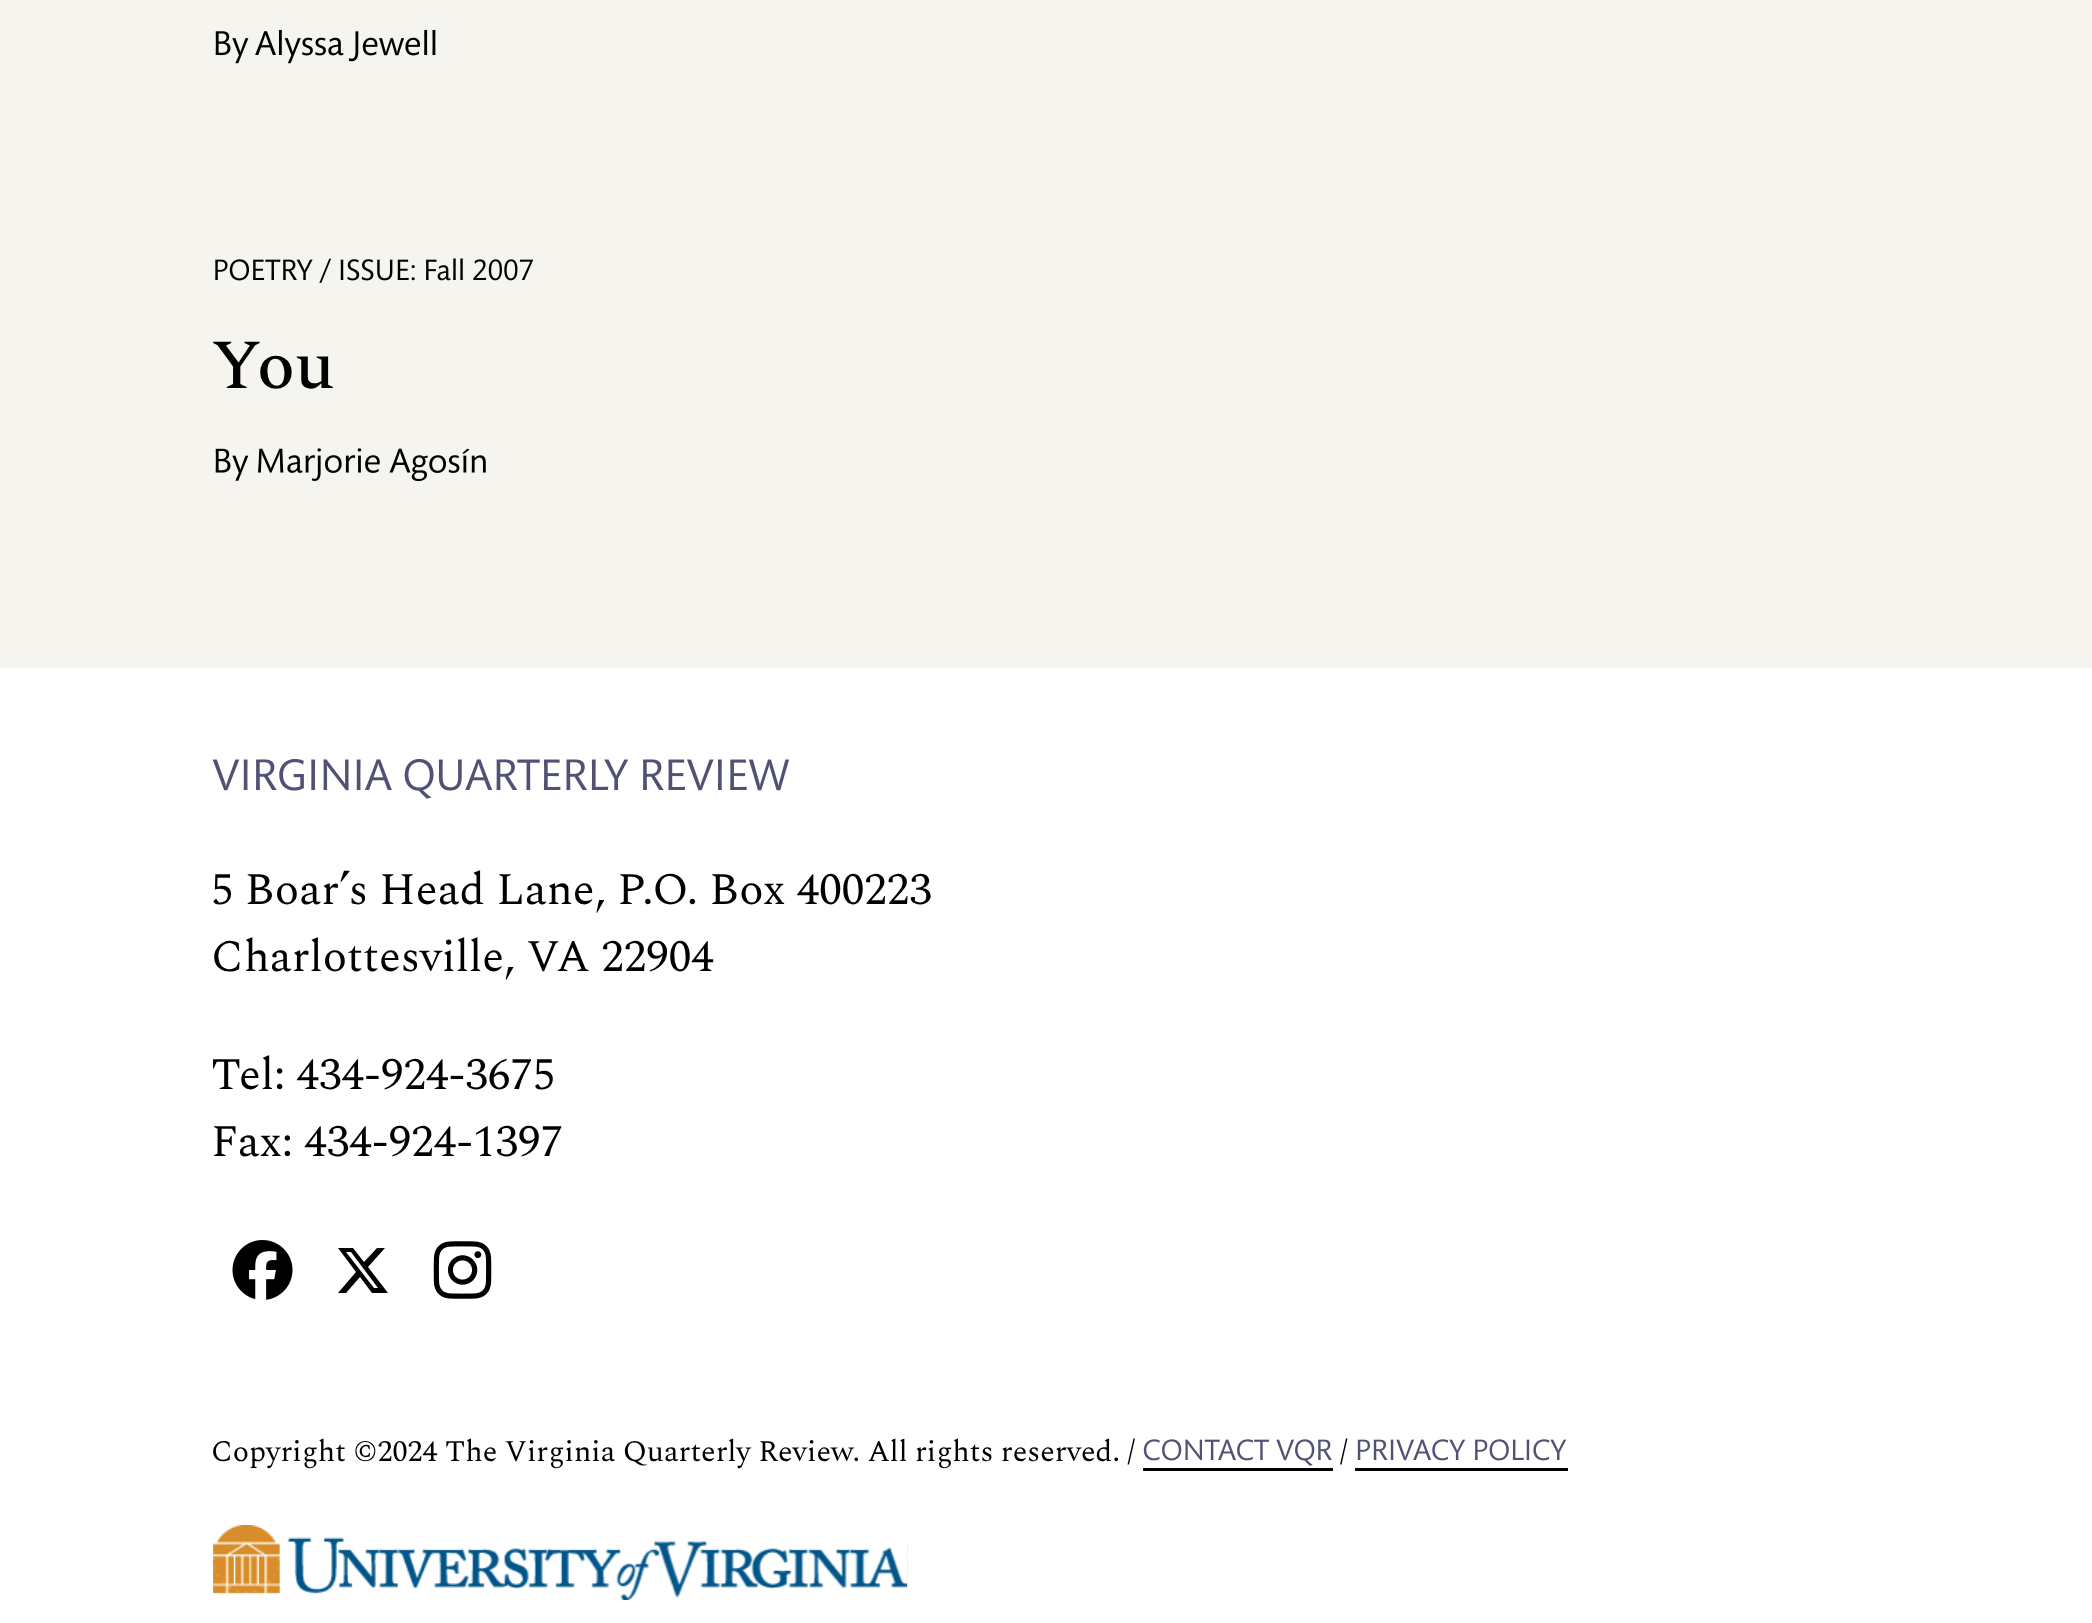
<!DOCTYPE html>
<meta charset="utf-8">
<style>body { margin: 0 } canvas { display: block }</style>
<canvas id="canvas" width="2092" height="1623"></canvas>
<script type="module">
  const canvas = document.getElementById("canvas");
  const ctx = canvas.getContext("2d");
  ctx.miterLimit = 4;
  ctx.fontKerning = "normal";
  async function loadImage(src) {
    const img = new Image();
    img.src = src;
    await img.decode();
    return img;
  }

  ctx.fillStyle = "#ffffff";
  ctx.fillRect(0, 0, 2092, 1623);
  ctx.fillStyle = "#f6f4ef";
  ctx.fillRect(0, 0, 2092, 668);
  ctx.drawImage(await loadImage("img1.png"), 215, 31, 34, 33);
  ctx.drawImage(await loadImage("img2.png"), 255, 29, 181, 35);
  ctx.drawImage(await loadImage("img3.png"), 215, 258, 319, 25);
  ctx.font = "500 70px Spectral";
  ctx.fillStyle = "#000000";
  ctx.fillText("You", 211, 388);
  ctx.drawImage(await loadImage("img4.png"), 215, 448, 34, 33);
  ctx.drawImage(await loadImage("img5.png"), 258, 448, 228, 34);
  ctx.drawImage(await loadImage("img6.png"), 212, 758, 578, 41);
  ctx.font = "45px Spectral";
  ctx.fillText("5 Boar’s Head Lane, P.O. Box 400223", 211, 904);
  ctx.fillText("Charlottesville, VA 22904", 211, 971);
  ctx.fillText("Tel: 434-924-3675", 211, 1089);
  ctx.fillText("Fax: 434-924-1397", 211, 1156);
  ctx.drawImage(await loadImage("img7.png"), 232, 1240, 61, 60);
  ctx.beginPath();
  ctx.moveTo(377, 1248);
  ctx.lineTo(385, 1248);
  ctx.lineTo(368, 1267);
  ctx.lineTo(388, 1293);
  ctx.lineTo(372, 1293);
  ctx.lineTo(360, 1277);
  ctx.lineTo(346, 1293);
  ctx.lineTo(338, 1293);
  ctx.lineTo(356, 1272);
  ctx.lineTo(338, 1248);
  ctx.lineTo(353, 1248);
  ctx.lineTo(364, 1262);
  ctx.closePath();
  ctx.moveTo(374, 1288);
  ctx.lineTo(378, 1288);
  ctx.lineTo(351, 1252);
  ctx.lineTo(346, 1252);
  ctx.closePath();
  ctx.fill();
  ctx.drawImage(await loadImage("img8.png"), 433, 1241, 59, 58);
  ctx.font = "30px Spectral";
  ctx.fillText("Copyright ©2024 The Virginia Quarterly Review. All rights reserved. /", 211, 1461);
  ctx.drawImage(await loadImage("img9.png"), 1143, 1439, 189, 27);
  ctx.fillText("/", 1340, 1461);
  ctx.drawImage(await loadImage("img10.png"), 1357, 1439, 210, 22);
  ctx.fillRect(1143, 1468, 190, 3);
  ctx.fillRect(1355, 1468, 213, 3);
  ctx.drawImage(await loadImage("img11.png"), 213, 1525, 695, 75);
</script>
